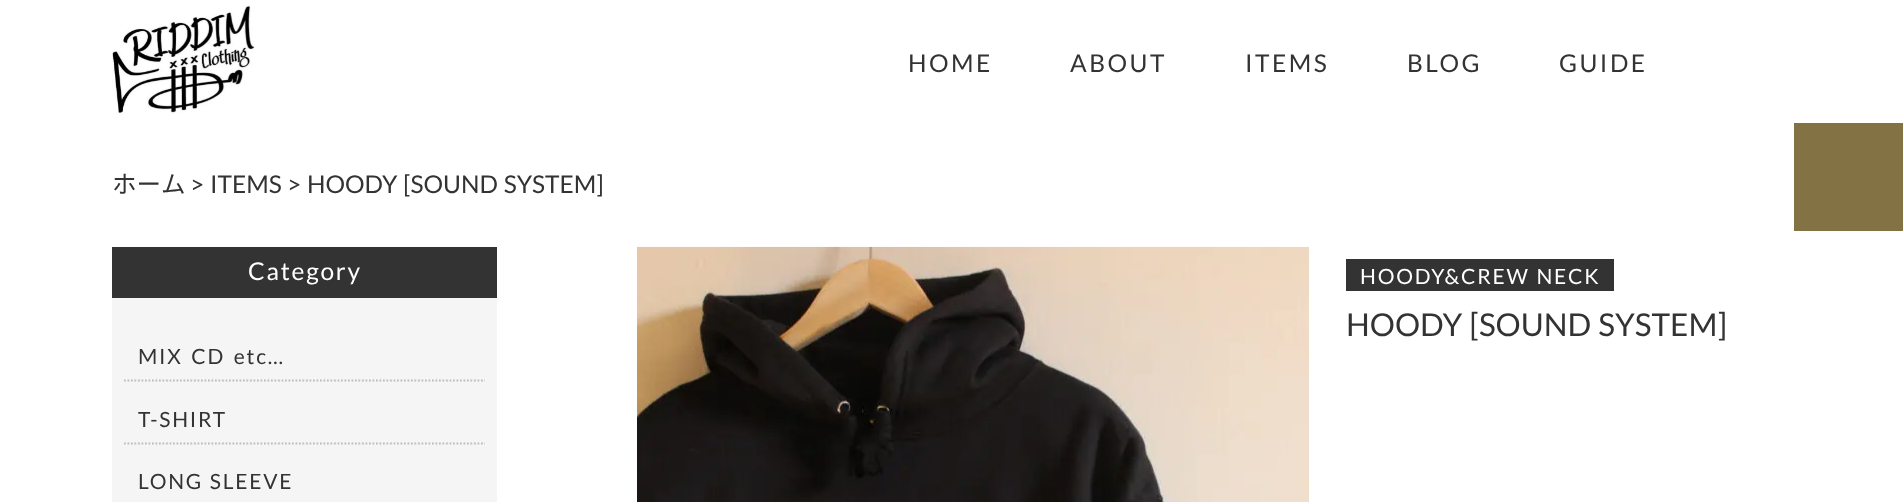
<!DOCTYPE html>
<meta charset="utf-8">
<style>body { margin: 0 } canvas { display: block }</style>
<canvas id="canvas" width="1903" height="502"></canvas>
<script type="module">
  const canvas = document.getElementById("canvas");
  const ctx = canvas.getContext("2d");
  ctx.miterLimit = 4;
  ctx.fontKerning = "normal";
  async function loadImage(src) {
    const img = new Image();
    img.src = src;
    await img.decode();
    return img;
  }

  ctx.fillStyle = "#ffffff";
  ctx.fillRect(0, 0, 1903, 502);
  ctx.drawImage(await loadImage("img1.png"), 112, 5, 143, 109);
  ctx.letterSpacing = "2.5px";
  ctx.font = "24.5px Lato";
  ctx.fillStyle = "#333333";
  ctx.fillText("HOME", 908, 72);
  ctx.fillText("ABOUT", 1070, 72);
  ctx.fillText("ITEMS", 1245, 72);
  ctx.fillText("BLOG", 1407, 72);
  ctx.fillText("GUIDE", 1559, 72);
  ctx.letterSpacing = "0px";
  ctx.font = "24.5px Noto Sans JP";
  ctx.fillText("ホーム", 112, 193);
  ctx.font = "24.5px Lato";
  ctx.fillText(">", 190, 193);
  ctx.fillText("ITEMS", 210, 193);
  ctx.fillText(">", 287, 193);
  ctx.wordSpacing = "1px";
  ctx.fillText("HOODY [SOUND SYSTEM]", 307, 193);
  ctx.fillStyle = "#f5f5f5";
  ctx.fillRect(112, 298, 385, 204);
  ctx.fillStyle = "#333333";
  ctx.fillRect(112, 247, 385, 51);
  ctx.letterSpacing = "1.75px";
  ctx.wordSpacing = "0px";
  ctx.fillStyle = "#ffffff";
  ctx.fillText("Category", 248, 280);
  ctx.beginPath();
  ctx.moveTo(124, 380.5);
  ctx.lineTo(485, 380.5);
  ctx.strokeStyle = "#bfbaba";
  ctx.lineWidth = 1.8;
  ctx.setLineDash([1.75, 1.75]);
  ctx.stroke();
  ctx.wordSpacing = "3px";
  ctx.font = "21px Lato";
  ctx.fillStyle = "#333333";
  ctx.fillText("MIX CD etc…", 138, 364);
  ctx.beginPath();
  ctx.moveTo(124, 443.5);
  ctx.lineTo(485, 443.5);
  ctx.stroke();
  ctx.wordSpacing = "0px";
  ctx.fillText("T-SHIRT", 138, 427);
  ctx.wordSpacing = "1px";
  ctx.fillText("LONG SLEEVE", 138, 489);
  ctx.drawImage(await loadImage("img2.png"), 637, 246, 672, 256);
  ctx.fillRect(1346, 259, 268, 32);
  ctx.fillStyle = "#ffffff";
  ctx.fillText("HOODY&CREW NECK", 1360, 284);
  ctx.letterSpacing = "0px";
  ctx.font = "31.5px Lato";
  ctx.fillStyle = "#333333";
  ctx.fillText("HOODY [SOUND SYSTEM]", 1346, 336);
  ctx.fillStyle = "#837244";
  ctx.fillRect(1794, 123, 109, 108);
</script>
